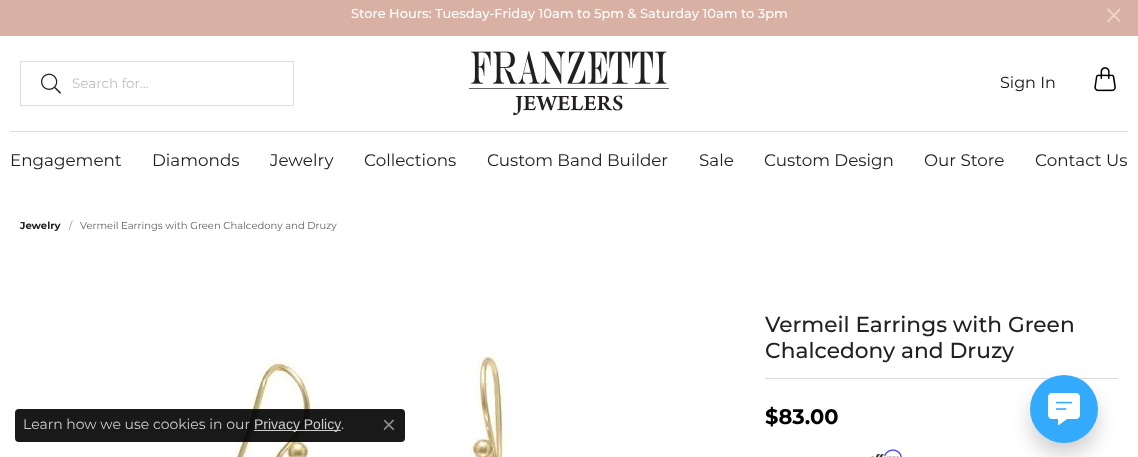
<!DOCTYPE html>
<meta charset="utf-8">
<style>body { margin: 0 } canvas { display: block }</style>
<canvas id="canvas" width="1138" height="457"></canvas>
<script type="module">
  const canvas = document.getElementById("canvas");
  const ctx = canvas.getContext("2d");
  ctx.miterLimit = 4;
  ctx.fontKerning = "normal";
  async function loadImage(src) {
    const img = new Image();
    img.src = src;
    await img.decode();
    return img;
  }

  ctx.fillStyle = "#ffffff";
  ctx.fillRect(0, 0, 1138, 457);
  ctx.fillStyle = "#d9b1a4";
  ctx.fillRect(0, 0, 1138, 36);
  ctx.font = "500 13px Montserrat";
  ctx.fillStyle = "#ffffff";
  ctx.fillText("Store Hours: Tuesday-Friday 10am to 5pm & Saturday 10am to 3pm", 351, 18);
  ctx.drawImage(await loadImage("img1.png"), 1107, 8, 13, 14);
  ctx.strokeStyle = "#dedede";
  ctx.strokeRect(20.5, 61.5, 273, 44);
  ctx.drawImage(await loadImage("img2.png"), 41, 73, 20, 21);
  ctx.font = "13.5px Montserrat";
  ctx.fillStyle = "#c1c1c1";
  ctx.fillText("Search for...", 72, 88);
  ctx.drawImage(await loadImage("img3.png"), 469, 51, 200, 65);
  ctx.font = "16px Montserrat";
  ctx.fillStyle = "#111111";
  ctx.fillText("Sign In", 1000, 88);
  ctx.drawImage(await loadImage("img4.png"), 1094, 67, 22, 25);
  ctx.fillStyle = "#dedede";
  ctx.fillRect(10, 131, 1118, 1);
  ctx.font = "16.75px Montserrat";
  ctx.fillStyle = "#212121";
  ctx.fillText("Engagement", 10, 166);
  ctx.fillText("Diamonds", 152, 166);
  ctx.fillText("Jewelry", 270, 166);
  ctx.fillText("Collections", 364, 166);
  ctx.fillText("Custom Band Builder", 487, 166);
  ctx.fillText("Sale", 699, 166);
  ctx.fillText("Custom Design", 764, 166);
  ctx.fillText("Our Store", 924, 166);
  ctx.fillText("Contact Us", 1035, 166);
  ctx.font = "bold 10px Montserrat";
  ctx.fillText("Jewelry", 20, 229);
  ctx.font = "10px Montserrat";
  ctx.fillStyle = "#959595";
  ctx.fillText("/", 69, 229);
  ctx.fillStyle = "#616161";
  ctx.fillText("Vermeil Earrings with Green Chalcedony and Druzy", 80, 229);
  ctx.drawImage(await loadImage("img5.png"), 235, 354, 280, 103);
  ctx.font = "500 21.7px Montserrat";
  ctx.fillStyle = "#212121";
  ctx.fillText("Vermeil Earrings with Green", 765, 332);
  ctx.fillText("Chalcedony and Druzy", 765, 358);
  ctx.fillStyle = "#dbdbdb";
  ctx.fillRect(765, 378, 353, 1);
  ctx.font = "bold 21px Montserrat";
  ctx.fillStyle = "#000000";
  ctx.fillText("$83.00", 765, 424);
  ctx.drawImage(await loadImage("img7.png"), 871, 454, 28, 3);
  ctx.drawImage(await loadImage("img6.png"), 884, 449, 18, 8);
  ctx.fillStyle = "rgba(0, 0, 0, 0.9)";
  ctx.beginPath();
  ctx.roundRect(15, 409, 390, 33, 4);
  ctx.fill();
  ctx.font = "14px Montserrat";
  ctx.fillStyle = "#cccccc";
  ctx.fillText("Learn how we use cookies in our", 23, 429);
  ctx.fillRect(254, 430, 87, 1);
  ctx.font = "14px Liberation Sans";
  ctx.fillText("Privacy Policy", 254, 429);
  ctx.font = "14px Montserrat";
  ctx.fillText(".", 341, 429);
  ctx.drawImage(await loadImage("img8.png"), 383, 419, 12, 12);
  ctx.fillStyle = "rgba(0, 0, 0, 0.18)";
  ctx.filter = "blur(9.5px)";
  ctx.beginPath();
  ctx.roundRect(1030, 387, 68, 68, 34);
  ctx.fill();
  ctx.filter = "none";
  ctx.fillStyle = "#33aafc";
  ctx.beginPath();
  ctx.arc(1064, 409, 34, 0, Math.PI * 2);
  ctx.fill();
  ctx.drawImage(await loadImage("img9.png"), 1048, 393, 32, 32);
</script>
